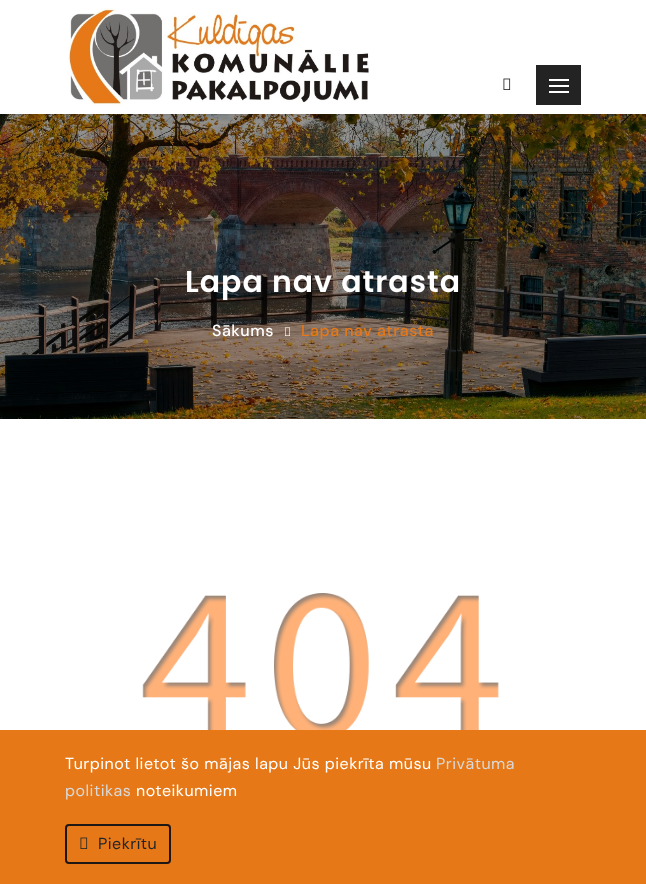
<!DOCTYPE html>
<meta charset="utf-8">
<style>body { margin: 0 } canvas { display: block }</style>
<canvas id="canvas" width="646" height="884"></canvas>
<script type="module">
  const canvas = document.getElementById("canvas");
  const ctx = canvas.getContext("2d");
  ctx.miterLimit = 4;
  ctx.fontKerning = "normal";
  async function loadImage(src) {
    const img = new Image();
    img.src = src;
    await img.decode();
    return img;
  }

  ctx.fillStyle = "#ffffff";
  ctx.fillRect(0, 0, 646, 884);
  ctx.drawImage(await loadImage("img3.png"), 0, 114, 646, 305);
  ctx.save();
  ctx.beginPath();
  ctx.rect(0, 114, 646, 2);
  ctx.clip();
  ctx.fillStyle = "rgba(0, 0, 0, 0.2)";
  ctx.filter = "blur(1.5px)";
  ctx.beginPath();
  ctx.rect(0, 0, 646, 114);
  ctx.fill();
  ctx.filter = "none";
  ctx.restore();
  ctx.drawImage(await loadImage("img1.png"), 68, 8, 301, 98);
  ctx.drawImage(await loadImage("img2.png"), 503, 78, 8, 12);
  ctx.fillStyle = "#232323";
  ctx.fillRect(536, 65, 45, 40);
  ctx.fillStyle = "#ffffff";
  ctx.fillRect(549, 79, 20, 2);
  ctx.fillRect(549, 85, 20, 2);
  ctx.fillRect(549, 91, 20, 2);
  ctx.letterSpacing = "1px";
  ctx.font = "600 30px Poppins";
  ctx.fillText("Lapa nav atrasta", 185, 292);
  ctx.letterSpacing = "0.5px";
  ctx.font = "500 16px DM Sans";
  ctx.fillText("Sākums", 212, 336);
  ctx.drawImage(await loadImage("img4.png"), 285, 327, 5, 9);
  ctx.fillStyle = "#e67817";
  ctx.fillText("Lapa nav atrasta", 301, 336);
  ctx.drawImage(await loadImage("img5.png"), 142, 593, 357, 137);
  ctx.fillRect(0, 730, 646, 154);
  ctx.font = "16px DM Sans";
  ctx.fillStyle = "#ffffff";
  ctx.fillText("Turpinot lietot šo mājas lapu Jūs piekrīta mūsu", 65, 769);
  ctx.fillStyle = "#d9d9d9";
  ctx.fillText("Privātuma", 436, 769);
  ctx.fillText("politikas", 65, 796);
  ctx.fillStyle = "#ffffff";
  ctx.fillText("noteikumiem", 136, 796);
  ctx.beginPath();
  ctx.roundRect(66, 825, 104, 38, 3);
  ctx.strokeStyle = "#1d1715";
  ctx.lineWidth = 2;
  ctx.stroke();
  ctx.drawImage(await loadImage("img6.png"), 80, 837, 8, 12);
  ctx.fillStyle = "#212529";
  ctx.fillText("Piekrītu", 98, 849);
</script>
